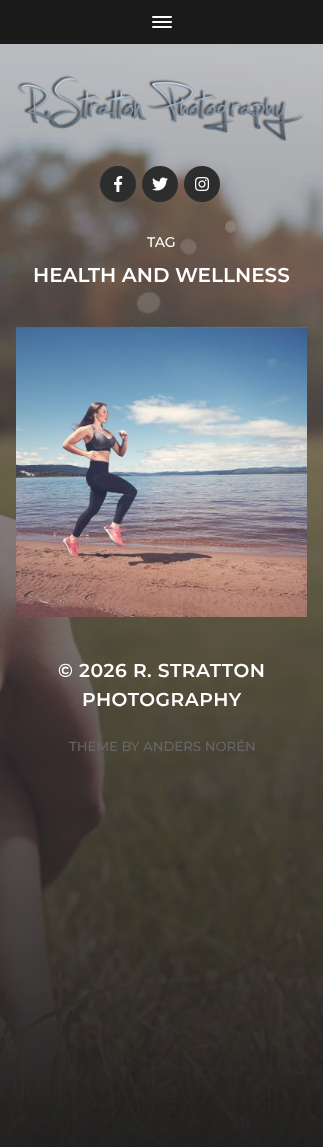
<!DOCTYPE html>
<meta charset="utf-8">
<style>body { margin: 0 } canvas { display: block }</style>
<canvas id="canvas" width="323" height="1147"></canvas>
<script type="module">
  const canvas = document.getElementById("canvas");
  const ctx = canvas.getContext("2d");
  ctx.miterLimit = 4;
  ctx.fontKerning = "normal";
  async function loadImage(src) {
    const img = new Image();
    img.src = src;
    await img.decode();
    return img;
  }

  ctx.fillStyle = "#1d1d1d";
  ctx.fillRect(0, 0, 323, 1147);
  ctx.fillStyle = "#1a1a1a";
  ctx.beginPath();
  ctx.roundRect(0, 0, 323, 44, 3);
  ctx.fill();
  ctx.fillStyle = "#ffffff";
  ctx.beginPath();
  ctx.roundRect(152, 16, 20, 2, 1);
  ctx.fill();
  ctx.beginPath();
  ctx.roundRect(152, 21, 20, 2, 1);
  ctx.fill();
  ctx.beginPath();
  ctx.roundRect(152, 26, 20, 2, 1);
  ctx.fill();
  ctx.drawImage(await loadImage("img1.png"), 0, 44, 323, 1103);
  ctx.drawImage(await loadImage("img2.png"), 17, 75, 287, 66);
  ctx.fillStyle = "#2d2d2d";
  ctx.beginPath();
  ctx.arc(118, 184, 18, 0, Math.PI * 2);
  ctx.fill();
  ctx.drawImage(await loadImage("img3.png"), 114, 176, 9, 16);
  ctx.beginPath();
  ctx.arc(160, 184, 18, 0, Math.PI * 2);
  ctx.fill();
  ctx.drawImage(await loadImage("img4.png"), 152, 177, 16, 14);
  ctx.beginPath();
  ctx.arc(202, 184, 18, 0, Math.PI * 2);
  ctx.fill();
  ctx.drawImage(await loadImage("img5.png"), 195, 177, 14, 14);
  ctx.font = "500 14px Montserrat";
  ctx.fillStyle = "#ffffff";
  ctx.fillText("TAG", 147, 247);
  ctx.font = "600 20px Montserrat";
  ctx.fillText("HEALTH AND WELLNESS", 33, 282);
  ctx.drawImage(await loadImage("img6.png"), 16, 327, 291, 290);
  ctx.font = "600 14px Montserrat";
  ctx.fillStyle = "#827786";
  ctx.fillText("2", 105, 529);
  ctx.letterSpacing = "0.5px";
  ctx.font = "600 18.75px Montserrat";
  ctx.fillStyle = "#ffffff";
  ctx.fillText("© 2026 R. STRATTON", 58, 677);
  ctx.fillText("PHOTOGRAPHY", 82, 706);
  ctx.letterSpacing = "0px";
  ctx.font = "500 13.25px Montserrat";
  ctx.fillStyle = "#666666";
  ctx.fillText("THEME BY ANDERS NORÉN", 69, 751);
</script>
